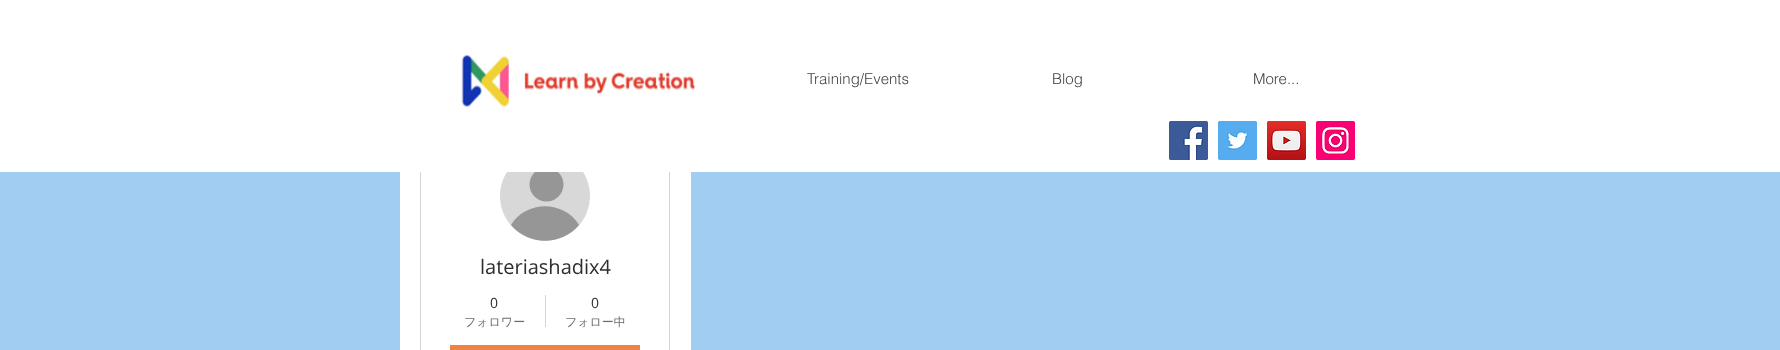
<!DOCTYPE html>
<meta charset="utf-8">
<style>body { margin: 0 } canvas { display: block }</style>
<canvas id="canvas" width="1780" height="350"></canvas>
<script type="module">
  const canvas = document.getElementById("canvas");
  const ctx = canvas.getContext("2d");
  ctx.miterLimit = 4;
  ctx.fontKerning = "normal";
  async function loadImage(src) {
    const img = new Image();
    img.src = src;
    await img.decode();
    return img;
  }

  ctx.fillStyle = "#a2cdf2";
  ctx.fillRect(0, 0, 1780, 350);
  ctx.fillStyle = "#ffffff";
  ctx.fillRect(400, 172, 291, 178);
  ctx.strokeStyle = "#d5d5d5";
  ctx.strokeRect(420.5, 121.5, 249, 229);
  ctx.fillStyle = "#d8d8d8";
  ctx.beginPath();
  ctx.arc(545, 196, 45, 0, Math.PI * 2);
  ctx.fill();
  ctx.fillStyle = "#969696";
  ctx.beginPath();
  ctx.arc(546.5, 184.5, 17, 0, Math.PI * 2);
  ctx.fill();
  ctx.fillStyle = "#ffffff";
  ctx.fillRect(0, 0, 1780, 172);
  ctx.drawImage(await loadImage("img1.png"), 461, 54, 235, 53);
  ctx.font = "300 15px helvetica";
  ctx.fillStyle = "#444444";
  ctx.fillText("Training/Events", 807, 84);
  ctx.fillText("Blog", 1052, 84);
  ctx.fillText("More...", 1253, 84);
  ctx.drawImage(await loadImage("img2.png"), 1169, 121, 39, 39);
  ctx.drawImage(await loadImage("img3.png"), 1218, 121, 39, 39);
  ctx.drawImage(await loadImage("img4.png"), 1267, 121, 39, 39);
  ctx.drawImage(await loadImage("img5.png"), 1316, 121, 39, 39);
  ctx.fillStyle = "#969696";
  ctx.beginPath();
  ctx.moveTo(579, 225);
  ctx.bezierCurveTo(561, 246, 529, 246, 511, 225);
  ctx.bezierCurveTo(526, 200, 564, 200, 579, 225);
  ctx.closePath();
  ctx.fill();
  ctx.font = "20px Open Sans";
  ctx.fillStyle = "#2f2e2e";
  ctx.fillText("lateriashadix4", 480, 274);
  ctx.font = "14px Open Sans";
  ctx.fillText("0", 490, 308);
  ctx.font = "500 12px WenQuanYi Zen Hei";
  ctx.fillStyle = "#6d6d6d";
  ctx.fillText("フォロワー", 464, 326);
  ctx.fillStyle = "#d5d5d5";
  ctx.fillRect(545, 295, 1, 32);
  ctx.font = "14px Open Sans";
  ctx.fillStyle = "#2f2e2e";
  ctx.fillText("0", 591, 308);
  ctx.font = "500 12px WenQuanYi Zen Hei";
  ctx.fillStyle = "#6d6d6d";
  ctx.fillText("フォロー中", 565, 326);
  ctx.fillStyle = "#f28241";
  ctx.fillRect(450, 345, 190, 5);
</script>
